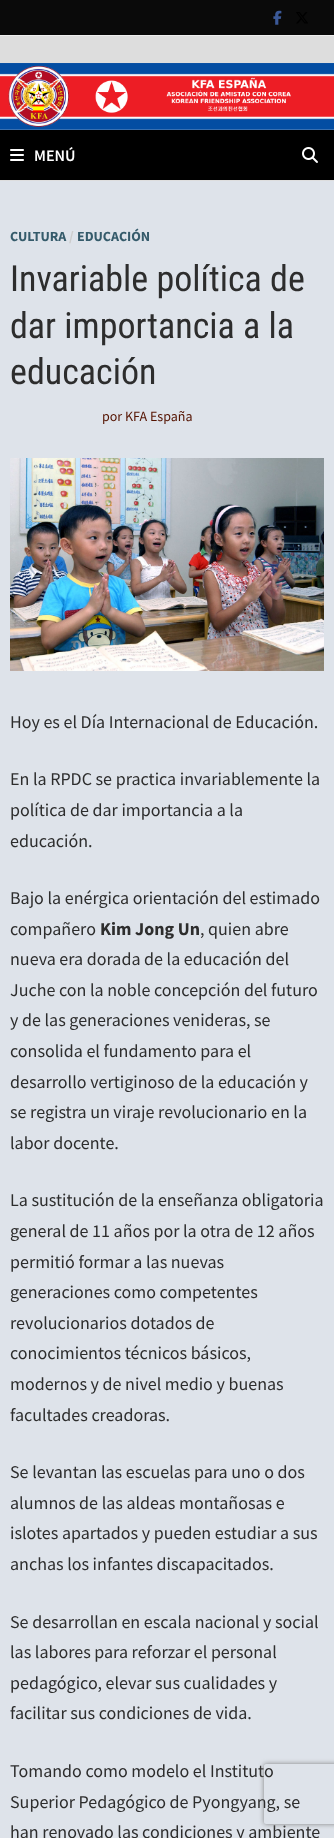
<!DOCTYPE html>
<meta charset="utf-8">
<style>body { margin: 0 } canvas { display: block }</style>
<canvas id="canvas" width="334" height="1838"></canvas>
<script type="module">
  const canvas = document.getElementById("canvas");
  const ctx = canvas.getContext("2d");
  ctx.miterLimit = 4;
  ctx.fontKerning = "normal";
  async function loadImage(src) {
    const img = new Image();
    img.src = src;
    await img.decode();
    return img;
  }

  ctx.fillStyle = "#dee3ea";
  ctx.fillRect(0, 0, 334, 1838);
  ctx.fillStyle = "#0a0a0a";
  ctx.fillRect(0, 0, 334, 35);
  ctx.fillStyle = "#eeeeee";
  ctx.fillRect(0, 35, 334, 1);
  ctx.drawImage(await loadImage("img1.png"), 273, 10, 9, 15);
  ctx.drawImage(await loadImage("img2.png"), 296, 12, 12, 12);
  ctx.fillStyle = "#dddddd";
  ctx.fillRect(0, 36, 334, 145);
  ctx.drawImage(await loadImage("img3.png"), 0, 63, 334, 67);
  ctx.fillStyle = "#000000";
  ctx.fillRect(0, 130, 334, 50);
  ctx.drawImage(await loadImage("img4.png"), 10, 149, 14, 12);
  ctx.font = "600 16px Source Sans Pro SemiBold";
  ctx.fillStyle = "#ffffff";
  ctx.fillText("MENÚ", 34, 161);
  ctx.drawImage(await loadImage("img5.png"), 302, 147, 16, 16);
  ctx.font = "bold 14px Source Sans Pro";
  ctx.fillStyle = "#355b6b";
  ctx.fillText("CULTURA", 10, 241);
  ctx.fillStyle = "#cccccc";
  ctx.fillText("/", 69, 241);
  ctx.fillStyle = "#355b6b";
  ctx.fillText("EDUCACIÓN", 77, 241);
  ctx.font = "36px Roboto Condensed";
  ctx.fillStyle = "#2d2d2d";
  ctx.fillText("Invariable política de", 10, 291);
  ctx.fillText("dar importancia a la", 10, 338);
  ctx.fillText("educación", 10, 384);
  ctx.font = "14px Source Sans Pro";
  ctx.fillStyle = "#541300";
  ctx.fillText("por KFA España", 102, 421);
  ctx.drawImage(await loadImage("img6.png"), 10, 458, 314, 213);
  ctx.font = "18px Source Sans Pro";
  ctx.fillStyle = "#2d2d2d";
  ctx.fillText("Hoy es el Día Internacional de Educación.", 10, 728);
  ctx.fillText("En la RPDC se practica invariablemente la", 10, 785);
  ctx.fillText("política de dar importancia a la", 10, 816);
  ctx.fillText("educación.", 10, 847);
  ctx.fillText("Bajo la enérgica orientación del estimado", 10, 904);
  ctx.fillText("compañero", 10, 935);
  ctx.font = "bold 18px Source Sans Pro";
  ctx.fillText("Kim Jong Un", 100, 935);
  ctx.font = "18px Source Sans Pro";
  ctx.fillText(", quien abre", 200, 935);
  ctx.fillText("nueva era dorada de la educación del", 10, 965);
  ctx.fillText("Juche con la noble concepción del futuro", 10, 996);
  ctx.fillText("y de las generaciones venideras, se", 10, 1026);
  ctx.fillText("consolida el fundamento para el", 10, 1057);
  ctx.fillText("desarrollo vertiginoso de la educación y", 10, 1088);
  ctx.fillText("se registra un viraje revolucionario en la", 10, 1118);
  ctx.fillText("labor docente.", 10, 1149);
  ctx.fillText("La sustitución de la enseñanza obligatoria", 10, 1206);
  ctx.fillText("general de 11 años por la otra de 12 años", 10, 1237);
  ctx.fillText("permitió formar a las nuevas", 10, 1268);
  ctx.fillText("generaciones como competentes", 10, 1298);
  ctx.fillText("revolucionarios dotados de", 10, 1329);
  ctx.fillText("conocimientos técnicos básicos,", 10, 1359);
  ctx.fillText("modernos y de nivel medio y buenas", 10, 1390);
  ctx.fillText("facultades creadoras.", 10, 1421);
  ctx.fillText("Se levantan las escuelas para uno o dos", 10, 1478);
  ctx.fillText("alumnos de las aldeas montañosas e", 10, 1509);
  ctx.fillText("islotes apartados y pueden estudiar a sus", 10, 1539);
  ctx.fillText("anchas los infantes discapacitados.", 10, 1570);
  ctx.fillText("Se desarrollan en escala nacional y social", 10, 1628);
  ctx.fillText("las labores para reforzar el personal", 10, 1658);
  ctx.fillText("pedagógico, elevar sus cualidades y", 10, 1689);
  ctx.fillText("facilitar sus condiciones de vida.", 10, 1719);
  ctx.fillText("Tomando como modelo el Instituto", 10, 1777);
  ctx.fillText("Superior Pedagógico de Pyongyang, se", 10, 1808);
  ctx.fillText("han renovado las condiciones y ambiente", 10, 1838);
  ctx.save();
  ctx.beginPath();
  ctx.moveTo(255, 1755);
  ctx.lineTo(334, 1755);
  ctx.lineTo(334, 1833);
  ctx.lineTo(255, 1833);
  ctx.closePath();
  ctx.moveTo(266, 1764);
  ctx.lineTo(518, 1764);
  ctx.bezierCurveTo(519, 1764, 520, 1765, 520, 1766);
  ctx.lineTo(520, 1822);
  ctx.bezierCurveTo(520, 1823, 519, 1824, 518, 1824);
  ctx.lineTo(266, 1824);
  ctx.bezierCurveTo(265, 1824, 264, 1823, 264, 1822);
  ctx.lineTo(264, 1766);
  ctx.bezierCurveTo(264, 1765, 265, 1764, 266, 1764);
  ctx.closePath();
  ctx.clip("evenodd");
  ctx.fillStyle = "#808080";
  ctx.filter = "blur(2.5px)";
  ctx.beginPath();
  ctx.roundRect(264, 1764, 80, 60, 2);
  ctx.fill();
  ctx.filter = "none";
  ctx.restore();
</script>
